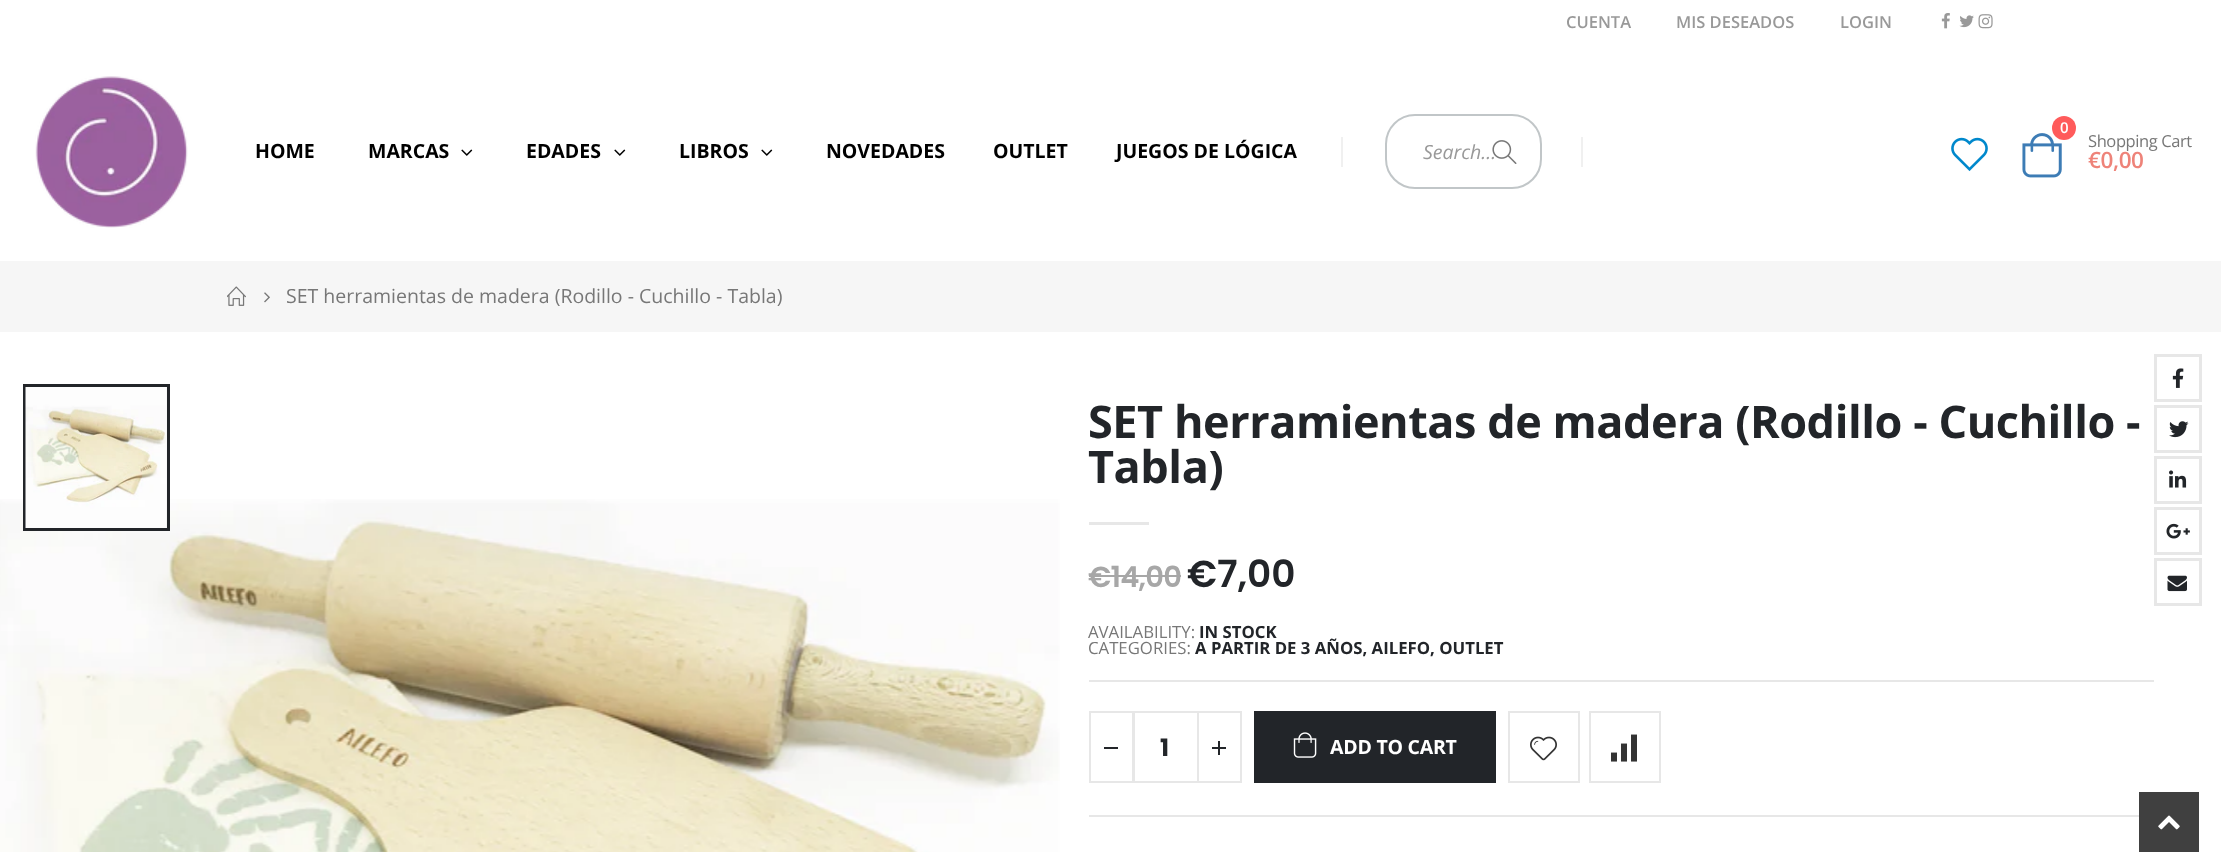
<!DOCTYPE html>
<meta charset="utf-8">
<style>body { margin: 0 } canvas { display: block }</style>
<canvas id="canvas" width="2221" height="852"></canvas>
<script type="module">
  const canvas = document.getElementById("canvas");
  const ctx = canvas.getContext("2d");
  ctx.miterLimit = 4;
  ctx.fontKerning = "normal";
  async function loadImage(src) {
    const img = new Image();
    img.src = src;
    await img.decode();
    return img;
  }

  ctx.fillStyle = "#f6f6f6";
  ctx.fillRect(0, 0, 2221, 852);
  ctx.fillStyle = "#ffffff";
  ctx.fillRect(0, 0, 2221, 261);
  ctx.font = "600 16.5px Open Sans";
  ctx.fillStyle = "#999999";
  ctx.fillText("CUENTA", 1566, 28);
  ctx.fillText("MIS DESEADOS", 1676, 28);
  ctx.fillText("LOGIN", 1840, 28);
  ctx.drawImage(await loadImage("img1.png"), 1941, 13, 9, 16);
  ctx.drawImage(await loadImage("img2.png"), 1959, 15, 15, 13);
  ctx.drawImage(await loadImage("img3.png"), 1978, 14, 15, 15);
  ctx.drawImage(await loadImage("img4.png"), 35, 76, 153, 152);
  ctx.font = "bold 19.5px Open Sans";
  ctx.fillStyle = "#000000";
  ctx.fillText("HOME", 255, 158);
  ctx.fillText("MARCAS", 368, 158);
  ctx.drawImage(await loadImage("img5.png"), 461, 149, 12, 7);
  ctx.fillText("EDADES", 526, 158);
  ctx.drawImage(await loadImage("img5.png"), 614, 149, 12, 7);
  ctx.fillText("LIBROS", 679, 158);
  ctx.drawImage(await loadImage("img5.png"), 761, 149, 12, 7);
  ctx.fillText("NOVEDADES", 826, 158);
  ctx.fillText("OUTLET", 993, 158);
  ctx.fillText("JUEGOS DE LÓGICA", 1116, 158);
  ctx.fillStyle = "#f0f0f0";
  ctx.fillRect(1341, 137, 2, 30);
  ctx.beginPath();
  ctx.roundRect(1386, 115, 155, 73, 29);
  ctx.strokeStyle = "#c1c6c8";
  ctx.lineWidth = 2;
  ctx.stroke();
  ctx.font = "italic 19.5px Open Sans";
  ctx.fillStyle = "#999999";
  ctx.fillText("Search...", 1423, 159);
  ctx.drawImage(await loadImage("img6.png"), 1492, 140, 25, 24);
  ctx.fillStyle = "#f0f0f0";
  ctx.fillRect(1581, 137, 2, 30);
  ctx.drawImage(await loadImage("img7.png"), 1951, 137, 37, 35);
  ctx.drawImage(await loadImage("img8.png"), 2022, 133, 40, 45);
  ctx.fillStyle = "#ff5b5b";
  ctx.beginPath();
  ctx.arc(2064, 128, 12, 0, Math.PI * 2);
  ctx.fill();
  ctx.font = "600 15px Open Sans";
  ctx.fillStyle = "#ffffff";
  ctx.fillText("0", 2060, 133);
  ctx.letterSpacing = "-0.4px";
  ctx.font = "16.5px Open Sans";
  ctx.fillStyle = "#777777";
  ctx.fillText("Shopping Cart", 2088, 147);
  ctx.font = "600 22.5px Open Sans";
  ctx.fillStyle = "#ee8379";
  ctx.fillText("€0,00", 2088, 168);
  ctx.drawImage(await loadImage("img9.png"), 227, 286, 19, 20);
  ctx.drawImage(await loadImage("img10.png"), 264, 292, 6, 11);
  ctx.letterSpacing = "0px";
  ctx.font = "19.5px Open Sans";
  ctx.fillStyle = "#777777";
  ctx.fillText("SET herramientas de madera (Rodillo - Cuchillo - Tabla)", 286, 303);
  ctx.fillStyle = "#ffffff";
  ctx.fillRect(0, 332, 2221, 520);
  ctx.drawImage(await loadImage("img12.png"), 0, 499, 1060, 353);
  ctx.fillStyle = "rgba(244, 244, 244, 0.5)";
  ctx.fillRect(166, 387, 1, 141);
  ctx.strokeStyle = "#222529";
  ctx.lineWidth = 3;
  ctx.strokeRect(24.5, 385.5, 144, 144);
  ctx.drawImage(await loadImage("img11.png"), 25, 387, 141, 141);
  ctx.letterSpacing = "-0.45px";
  ctx.font = "bold 45px Open Sans";
  ctx.fillStyle = "#222529";
  ctx.fillText("SET herramientas de madera (Rodillo - Cuchillo -", 1088, 438);
  ctx.fillText("Tabla)", 1088, 483);
  ctx.strokeStyle = "#e7e7e7";
  ctx.strokeRect(2155.5, 355.5, 45, 45);
  ctx.drawImage(await loadImage("img13.png"), 2172, 368, 12, 20);
  ctx.strokeRect(2155.5, 406.5, 45, 45);
  ctx.drawImage(await loadImage("img14.png"), 2169, 421, 20, 17);
  ctx.strokeRect(2155.5, 457.5, 45, 45);
  ctx.drawImage(await loadImage("img15.png"), 2169, 470, 18, 18);
  ctx.strokeRect(2155.5, 508.5, 45, 45);
  ctx.drawImage(await loadImage("img16.png"), 2166, 523, 24, 16);
  ctx.strokeRect(2155.5, 559.5, 45, 45);
  ctx.drawImage(await loadImage("img17.png"), 2167, 575, 20, 17);
  ctx.fillStyle = "#e7e7e7";
  ctx.fillRect(1089, 522, 60, 3);
  ctx.letterSpacing = "-0.75px";
  ctx.font = "600 29px Poppins";
  ctx.fillStyle = "#a7a7a7";
  ctx.fillText("€14,00", 1088, 587);
  ctx.fillRect(1089, 575, 92, 2);
  ctx.letterSpacing = "0px";
  ctx.font = "600 37.5px Poppins";
  ctx.fillStyle = "#222529";
  ctx.fillText("€7,00", 1187, 587);
  ctx.font = "16.75px Open Sans";
  ctx.fillStyle = "#777777";
  ctx.fillText("AVAILABILITY:", 1088, 638);
  ctx.font = "bold 16.75px Open Sans";
  ctx.fillStyle = "#222529";
  ctx.fillText("IN STOCK", 1199, 638);
  ctx.font = "16.75px Open Sans";
  ctx.fillStyle = "#777777";
  ctx.fillText("CATEGORIES:", 1088, 654);
  ctx.font = "bold 16.75px Open Sans";
  ctx.fillStyle = "#222529";
  ctx.fillText("A PARTIR DE 3 AÑOS, AILEFO, OUTLET", 1195, 654);
  ctx.fillStyle = "#e7e7e7";
  ctx.fillRect(1089, 680, 1065, 2);
  ctx.fillRect(1089, 815, 1050, 2);
  ctx.lineWidth = 2;
  ctx.strokeRect(1134, 712, 64, 70);
  ctx.strokeRect(1090, 712, 43, 70);
  ctx.fillStyle = "#222529";
  ctx.fillRect(1104, 747, 14, 2);
  ctx.strokeRect(1198, 712, 43, 70);
  ctx.fillRect(1212, 747, 14, 2);
  ctx.fillRect(1218, 741, 2, 14);
  ctx.font = "bold 24px Poppins";
  ctx.fillText("1", 1160, 756);
  ctx.fillRect(1254, 711, 242, 72);
  ctx.drawImage(await loadImage("img18.png"), 1293, 732, 24, 26);
  ctx.letterSpacing = "-0.25px";
  ctx.font = "bold 19.5px Open Sans";
  ctx.fillStyle = "#ffffff";
  ctx.fillText("ADD TO CART", 1330, 754);
  ctx.strokeRect(1509, 712, 70, 70);
  ctx.drawImage(await loadImage("img19.png"), 1530, 736, 27, 25);
  ctx.strokeRect(1590, 712, 70, 70);
  ctx.drawImage(await loadImage("img20.png"), 1611, 734, 26, 28);
  ctx.fillStyle = "#404040";
  ctx.fillRect(2139, 792, 60, 60);
  ctx.drawImage(await loadImage("img21.png"), 2158, 815, 22, 15);
</script>
